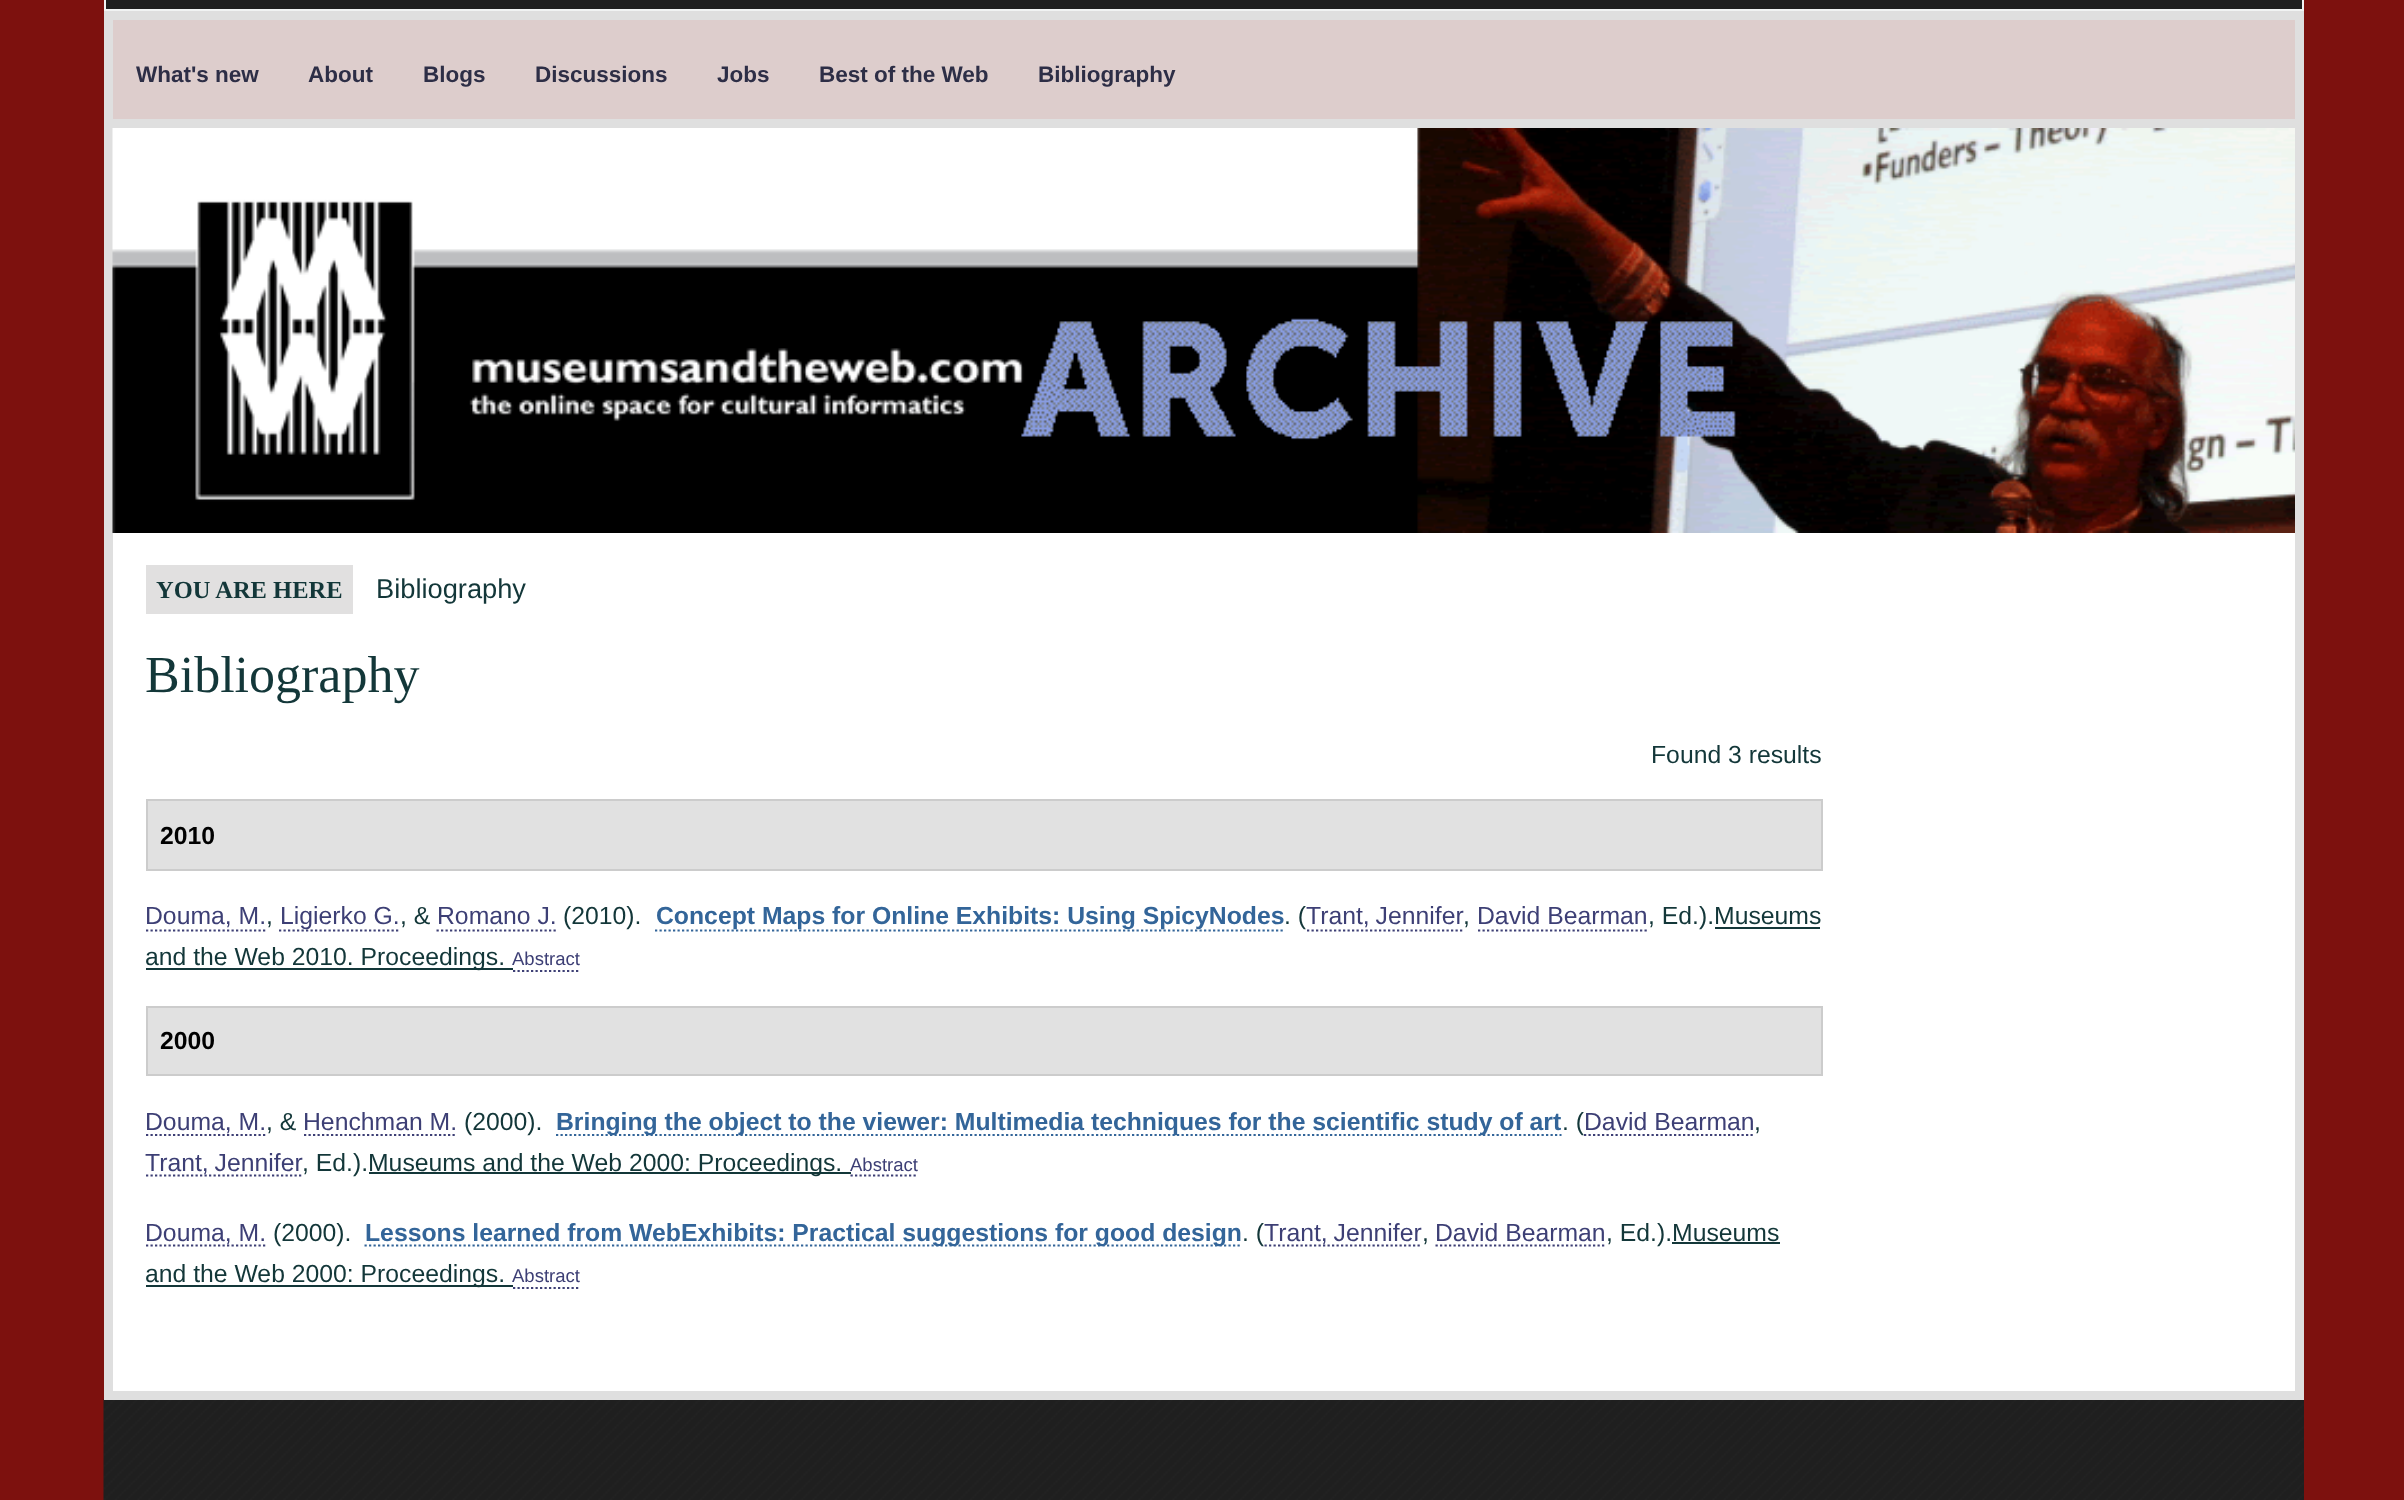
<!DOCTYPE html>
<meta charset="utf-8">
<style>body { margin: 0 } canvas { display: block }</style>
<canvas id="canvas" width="2404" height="1500"></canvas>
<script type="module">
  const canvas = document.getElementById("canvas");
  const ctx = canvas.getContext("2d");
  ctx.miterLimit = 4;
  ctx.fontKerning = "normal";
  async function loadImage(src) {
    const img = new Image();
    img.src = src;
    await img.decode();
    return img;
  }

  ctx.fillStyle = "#7d110e";
  ctx.fillRect(0, 0, 2404, 1500);
  ctx.fillStyle = "#1f1f1f";
  ctx.beginPath();
  ctx.rect(105, -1, 2198, 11);
  ctx.fill();
  ctx.strokeStyle = "#f1f3f3";
  ctx.lineWidth = 2;
  ctx.stroke();
  ctx.fillStyle = "#ddcdcc";
  ctx.fillRect(113, 20, 2182, 99);
  ctx.fillStyle = "#dfdfdf";
  ctx.fillRect(113, 11, 2182, 9);
  ctx.fillRect(2295, 11, 9, 108);
  ctx.fillRect(104, 11, 9, 108);
  ctx.font = "bold 22.5px Liberation Sans";
  ctx.fillStyle = "#2d2e46";
  ctx.fillText("What's new", 136, 82);
  ctx.fillText("About", 308, 82);
  ctx.fillText("Blogs", 423, 82);
  ctx.fillText("Discussions", 535, 82);
  ctx.fillText("Jobs", 717, 82);
  ctx.fillText("Best of the Web", 819, 82);
  ctx.fillText("Bibliography", 1038, 82);
  ctx.fillStyle = "#ffffff";
  ctx.fillRect(113, 533, 2182, 858);
  ctx.drawImage(await loadImage("img2.png"), 103, 1399, 2201, 101);
  ctx.strokeStyle = "#dfdfdf";
  ctx.lineWidth = 9;
  ctx.strokeRect(108.5, 123.5, 2191, 1272);
  ctx.drawImage(await loadImage("img1.png"), 112, 128, 2183, 405);
  ctx.fillStyle = "#e1e0e0";
  ctx.fillRect(146, 565, 207, 49);
  ctx.font = "bold 24.5px Liberation Serif";
  ctx.fillStyle = "#133739";
  ctx.fillText("YOU ARE HERE", 156, 598);
  ctx.font = "27.25px Liberation Sans";
  ctx.fillText("Bibliography", 376, 598);
  ctx.font = "52px Liberation Serif";
  ctx.fillText("Bibliography", 145, 692);
  ctx.font = "24.75px Liberation Sans";
  ctx.fillText("Found 3 results", 1651, 763);
  ctx.fillStyle = "#e1e1e1";
  ctx.beginPath();
  ctx.rect(147, 800, 1675, 70);
  ctx.fill();
  ctx.strokeStyle = "#cccccc";
  ctx.lineWidth = 2;
  ctx.stroke();
  ctx.font = "bold 24.75px Liberation Sans";
  ctx.fillStyle = "#000000";
  ctx.fillText("2010", 160, 844);
  ctx.font = "24.75px Liberation Sans";
  ctx.fillStyle = "#3d3f75";
  ctx.fillText("Douma, M.", 145, 924);
  ctx.fillStyle = "#133739";
  ctx.fillText(",", 266, 924);
  ctx.beginPath();
  ctx.moveTo(146, 930.5);
  ctx.lineTo(265.5, 930.5);
  ctx.strokeStyle = "#3d3f75";
  ctx.lineWidth = 2.2;
  ctx.setLineDash([2.25, 2.25]);
  ctx.stroke();
  ctx.beginPath();
  ctx.moveTo(279, 930.5);
  ctx.lineTo(400.5, 930.5);
  ctx.stroke();
  ctx.fillStyle = "#3d3f75";
  ctx.fillText("Ligierko G.", 280, 924);
  ctx.fillStyle = "#133739";
  ctx.fillText(", &", 400, 924);
  ctx.fillStyle = "#3d3f75";
  ctx.fillText("Romano J.", 437, 924);
  ctx.beginPath();
  ctx.moveTo(436.5, 930.5);
  ctx.lineTo(556, 930.5);
  ctx.stroke();
  ctx.fillStyle = "#133739";
  ctx.fillText("(2010).", 563, 924);
  ctx.beginPath();
  ctx.moveTo(655, 930.5);
  ctx.lineTo(1285, 930.5);
  ctx.strokeStyle = "#336599";
  ctx.stroke();
  ctx.font = "bold 24.75px Liberation Sans";
  ctx.fillStyle = "#336599";
  ctx.fillText("Concept Maps for Online Exhibits: Using SpicyNodes", 656, 924);
  ctx.font = "24.75px Liberation Sans";
  ctx.fillStyle = "#133739";
  ctx.fillText(". (", 1284, 924);
  ctx.wordSpacing = "-1px";
  ctx.fillStyle = "#3d3f75";
  ctx.fillText("Trant, Jennifer", 1306, 924);
  ctx.wordSpacing = "0px";
  ctx.fillStyle = "#133739";
  ctx.fillText(",", 1463, 924);
  ctx.beginPath();
  ctx.moveTo(1307, 930.5);
  ctx.lineTo(1462.5, 930.5);
  ctx.strokeStyle = "#3d3f75";
  ctx.stroke();
  ctx.beginPath();
  ctx.moveTo(1478, 930.5);
  ctx.lineTo(1647, 930.5);
  ctx.stroke();
  ctx.fillStyle = "#3d3f75";
  ctx.fillText("David Bearman", 1477, 924);
  ctx.fillStyle = "#133739";
  ctx.fillText(", Ed.).Museums", 1648, 924);
  ctx.fillRect(146, 968, 367, 2);
  ctx.fillText("and the Web 2010. Proceedings.", 145, 965);
  ctx.fillRect(1715, 927, 105, 2);
  ctx.font = "18.5px Liberation Sans";
  ctx.fillStyle = "#3d3f75";
  ctx.fillText("Abstract", 512, 965);
  ctx.beginPath();
  ctx.moveTo(513, 971);
  ctx.lineTo(580.5, 971);
  ctx.stroke();
  ctx.fillStyle = "#e1e1e1";
  ctx.beginPath();
  ctx.rect(147, 1007, 1675, 68);
  ctx.fill();
  ctx.strokeStyle = "#cccccc";
  ctx.lineWidth = 2;
  ctx.setLineDash([]);
  ctx.stroke();
  ctx.font = "bold 24.75px Liberation Sans";
  ctx.fillStyle = "#000000";
  ctx.fillText("2000", 160, 1049);
  ctx.beginPath();
  ctx.moveTo(146, 1135);
  ctx.lineTo(265.5, 1135);
  ctx.strokeStyle = "#3d3f75";
  ctx.lineWidth = 2.2;
  ctx.setLineDash([2.25, 2.25]);
  ctx.stroke();
  ctx.font = "24.75px Liberation Sans";
  ctx.fillStyle = "#3d3f75";
  ctx.fillText("Douma, M.", 145, 1130);
  ctx.fillStyle = "#133739";
  ctx.fillText(", &", 266, 1130);
  ctx.fillStyle = "#3d3f75";
  ctx.fillText("Henchman M.", 303, 1130);
  ctx.beginPath();
  ctx.moveTo(304, 1135);
  ctx.lineTo(457, 1135);
  ctx.stroke();
  ctx.fillStyle = "#133739";
  ctx.fillText("(2000).", 464, 1130);
  ctx.beginPath();
  ctx.moveTo(556, 1135);
  ctx.lineTo(1561.5, 1135);
  ctx.strokeStyle = "#336599";
  ctx.stroke();
  ctx.font = "bold 24.75px Liberation Sans";
  ctx.fillStyle = "#336599";
  ctx.fillText("Bringing the object to the viewer: Multimedia techniques for the scientific study of art", 556, 1130);
  ctx.font = "24.75px Liberation Sans";
  ctx.fillStyle = "#133739";
  ctx.fillText(". (", 1562, 1130);
  ctx.fillStyle = "#3d3f75";
  ctx.fillText("David Bearman", 1584, 1130);
  ctx.fillStyle = "#133739";
  ctx.fillText(",", 1754, 1130);
  ctx.beginPath();
  ctx.moveTo(1584, 1135);
  ctx.lineTo(1755, 1135);
  ctx.strokeStyle = "#3d3f75";
  ctx.stroke();
  ctx.beginPath();
  ctx.moveTo(146, 1175.5);
  ctx.lineTo(301.5, 1175.5);
  ctx.stroke();
  ctx.wordSpacing = "-1px";
  ctx.fillStyle = "#3d3f75";
  ctx.fillText("Trant, Jennifer", 145, 1171);
  ctx.wordSpacing = "0px";
  ctx.fillStyle = "#133739";
  ctx.fillText(", Ed.).", 302, 1171);
  ctx.fillRect(369, 1172, 482, 2);
  ctx.fillText("Museums and the Web 2000: Proceedings.", 368, 1171);
  ctx.font = "18.5px Liberation Sans";
  ctx.fillStyle = "#3d3f75";
  ctx.fillText("Abstract", 850, 1171);
  ctx.beginPath();
  ctx.moveTo(850.5, 1175.5);
  ctx.lineTo(918, 1175.5);
  ctx.stroke();
  ctx.beginPath();
  ctx.moveTo(146, 1245.5);
  ctx.lineTo(265.5, 1245.5);
  ctx.stroke();
  ctx.font = "24.75px Liberation Sans";
  ctx.fillText("Douma, M.", 145, 1241);
  ctx.fillStyle = "#133739";
  ctx.fillText("(2000).", 273, 1241);
  ctx.beginPath();
  ctx.moveTo(364.5, 1245.5);
  ctx.lineTo(1242, 1245.5);
  ctx.strokeStyle = "#336599";
  ctx.stroke();
  ctx.font = "bold 24.75px Liberation Sans";
  ctx.fillStyle = "#336599";
  ctx.fillText("Lessons learned from WebExhibits: Practical suggestions for good design", 365, 1241);
  ctx.font = "24.75px Liberation Sans";
  ctx.fillStyle = "#133739";
  ctx.fillText(". (", 1242, 1241);
  ctx.beginPath();
  ctx.moveTo(1264.5, 1245.5);
  ctx.lineTo(1422, 1245.5);
  ctx.strokeStyle = "#3d3f75";
  ctx.stroke();
  ctx.wordSpacing = "-1px";
  ctx.fillStyle = "#3d3f75";
  ctx.fillText("Trant, Jennifer", 1264, 1241);
  ctx.wordSpacing = "0px";
  ctx.fillStyle = "#133739";
  ctx.fillText(",", 1422, 1241);
  ctx.beginPath();
  ctx.moveTo(1435.5, 1245.5);
  ctx.lineTo(1606.5, 1245.5);
  ctx.stroke();
  ctx.fillStyle = "#3d3f75";
  ctx.fillText("David Bearman", 1435, 1241);
  ctx.fillStyle = "#133739";
  ctx.fillText(", Ed.).Museums", 1606, 1241);
  ctx.fillRect(146, 1285, 367, 2);
  ctx.fillText("and the Web 2000: Proceedings.", 145, 1282);
  ctx.fillRect(1672, 1242, 108, 2);
  ctx.font = "18.5px Liberation Sans";
  ctx.fillStyle = "#3d3f75";
  ctx.fillText("Abstract", 512, 1282);
  ctx.beginPath();
  ctx.moveTo(513, 1288);
  ctx.lineTo(580.5, 1288);
  ctx.stroke();
</script>
